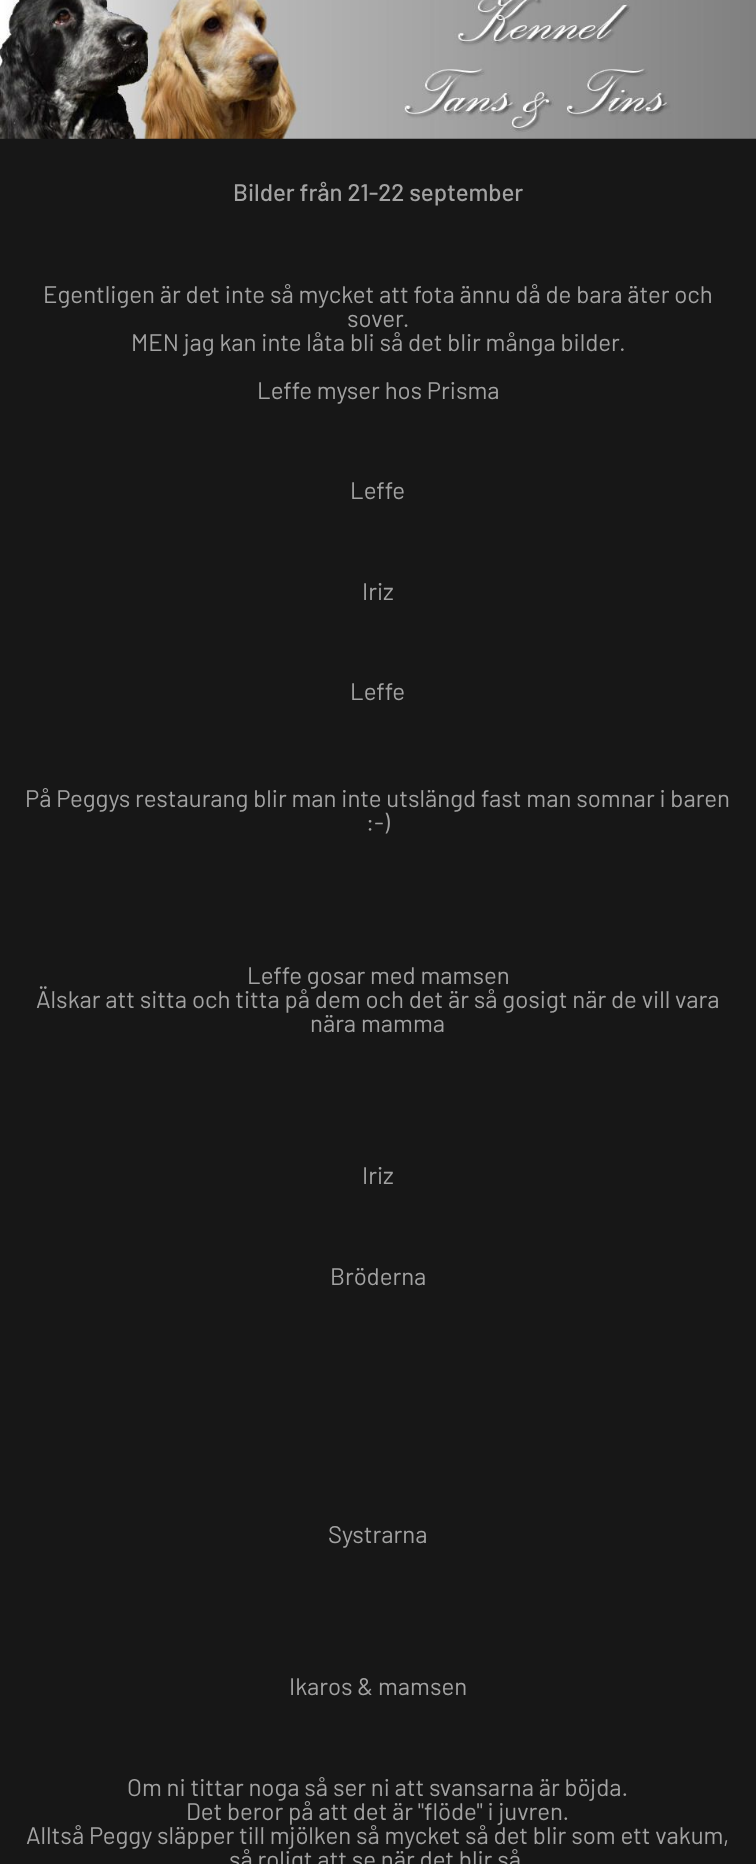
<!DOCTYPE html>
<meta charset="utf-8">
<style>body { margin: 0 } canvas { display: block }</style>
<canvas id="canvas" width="756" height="1864"></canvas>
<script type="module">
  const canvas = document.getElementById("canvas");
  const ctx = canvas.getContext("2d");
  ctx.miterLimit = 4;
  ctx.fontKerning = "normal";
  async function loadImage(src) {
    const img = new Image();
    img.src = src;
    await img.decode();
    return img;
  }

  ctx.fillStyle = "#171717";
  ctx.fillRect(0, 0, 756, 1864);
  ctx.drawImage(await loadImage("img1.png"), 0, 0, 756, 139);
  ctx.font = "500 24px Barlow";
  ctx.fillStyle = "#a2a2a2";
  ctx.fillText("Bilder från 21-22 september", 233, 201);
  ctx.font = "24px Barlow";
  ctx.fillText("Egentligen är det inte så mycket att fota ännu då de bara äter och", 43, 303);
  ctx.fillText("sover.", 347, 327);
  ctx.fillText("MEN jag kan inte låta bli så det blir många bilder.", 131, 351);
  ctx.fillText("Leffe myser hos Prisma", 257, 399);
  ctx.fillText("Leffe", 350, 499);
  ctx.fillText("Iriz", 362, 600);
  ctx.fillText("Leffe", 350, 700);
  ctx.fillText("På Peggys restaurang blir man inte utslängd fast man somnar i baren", 25, 807);
  ctx.fillText(":-)", 366, 831);
  ctx.fillText("Leffe gosar med mamsen", 247, 984);
  ctx.fillText("Älskar att sitta och titta på dem och det är så gosigt när de vill vara", 36, 1008);
  ctx.fillText("nära mamma", 310, 1032);
  ctx.fillText("Iriz", 362, 1184);
  ctx.fillText("Bröderna", 330, 1285);
  ctx.fillText("Systrarna", 328, 1543);
  ctx.fillText("Ikaros & mamsen", 289, 1695);
  ctx.fillText("Om ni tittar noga så ser ni att svansarna är böjda.", 127, 1796);
  ctx.fillText("Det beror på att det är \"flöde\" i juvren.", 186, 1820);
  ctx.fillText("Alltså Peggy släpper till mjölken så mycket så det blir som ett vakum,", 26, 1844);
  ctx.fillText("så roligt att se när det blir så", 229, 1868);
</script>
